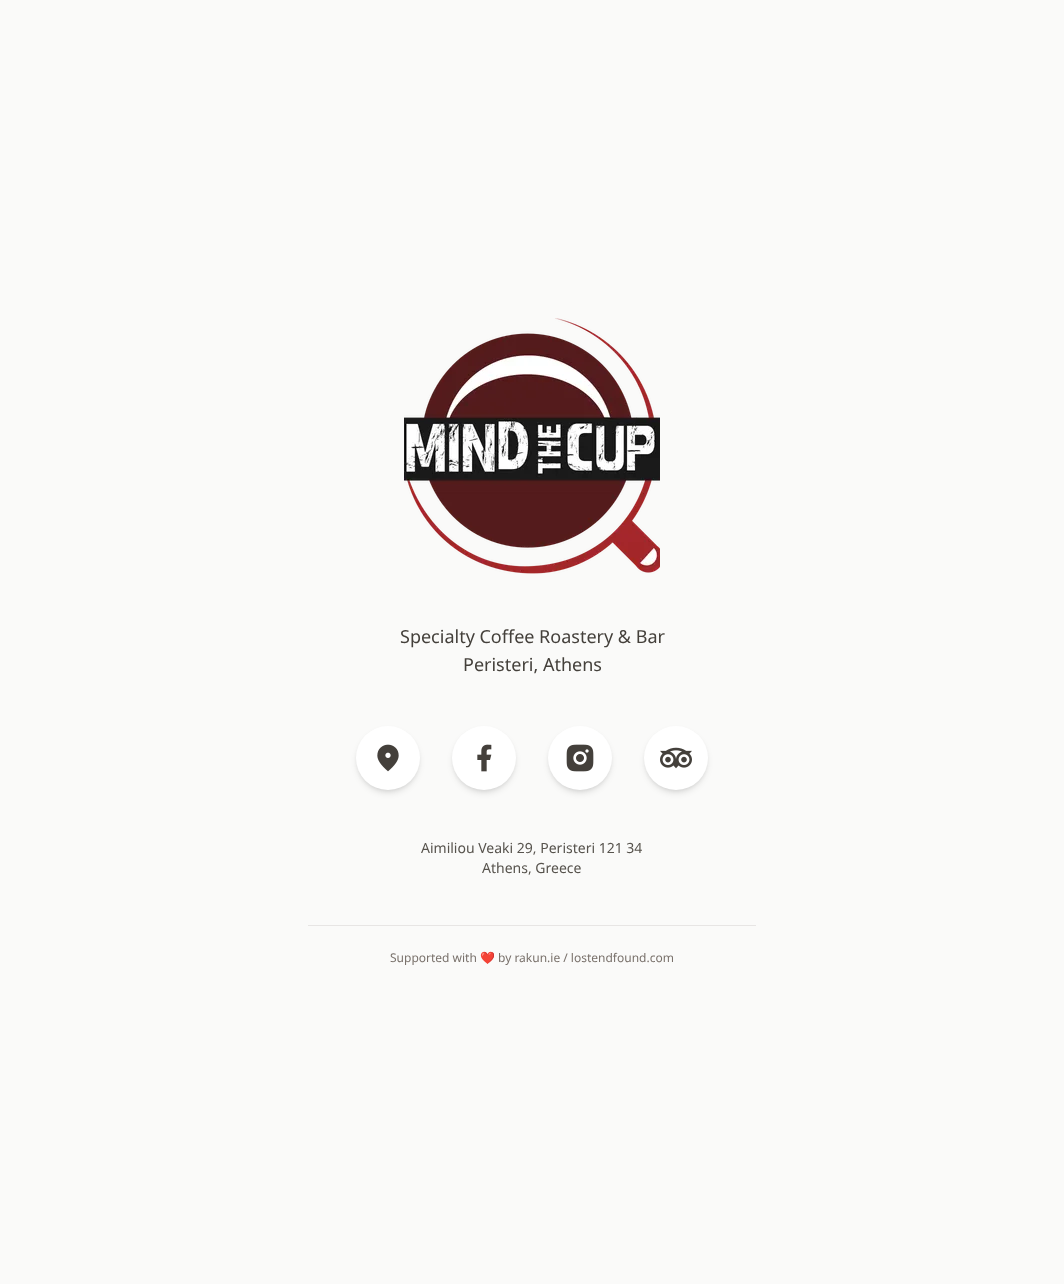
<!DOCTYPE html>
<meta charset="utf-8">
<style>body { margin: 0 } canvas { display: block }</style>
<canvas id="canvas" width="1064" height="1284"></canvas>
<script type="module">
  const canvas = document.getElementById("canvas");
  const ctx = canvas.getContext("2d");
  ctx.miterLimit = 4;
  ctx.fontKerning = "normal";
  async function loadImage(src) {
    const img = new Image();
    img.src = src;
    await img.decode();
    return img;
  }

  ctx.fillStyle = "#fafaf9";
  ctx.fillRect(0, 0, 1064, 1284);
  ctx.drawImage(await loadImage("img1.png"), 404, 318, 256, 256);
  ctx.font = "18px Noto Sans";
  ctx.fillStyle = "#44403b";
  ctx.fillText("Specialty Coffee Roastery & Bar", 400, 643);
  ctx.fillText("Peristeri, Athens", 463, 671);
  ctx.fillStyle = "rgba(0, 0, 0, 0.1)";
  ctx.filter = "blur(2px)";
  ctx.beginPath();
  ctx.roundRect(358, 730, 60, 60, 30);
  ctx.fill();
  ctx.filter = "none";
  ctx.filter = "blur(3px)";
  ctx.beginPath();
  ctx.roundRect(357, 731, 62, 62, 31);
  ctx.fill();
  ctx.filter = "none";
  ctx.fillStyle = "#ffffff";
  ctx.beginPath();
  ctx.arc(388, 758, 32, 0, Math.PI * 2);
  ctx.fill();
  ctx.drawImage(await loadImage("img2.png"), 377, 744, 22, 28);
  ctx.fillStyle = "rgba(0, 0, 0, 0.1)";
  ctx.filter = "blur(2px)";
  ctx.beginPath();
  ctx.roundRect(454, 730, 60, 60, 30);
  ctx.fill();
  ctx.filter = "none";
  ctx.filter = "blur(3px)";
  ctx.beginPath();
  ctx.roundRect(453, 731, 62, 62, 31);
  ctx.fill();
  ctx.filter = "none";
  ctx.fillStyle = "#ffffff";
  ctx.beginPath();
  ctx.arc(484, 758, 32, 0, Math.PI * 2);
  ctx.fill();
  ctx.drawImage(await loadImage("img3.png"), 477, 744, 15, 28);
  ctx.fillStyle = "rgba(0, 0, 0, 0.1)";
  ctx.filter = "blur(2px)";
  ctx.beginPath();
  ctx.roundRect(550, 730, 60, 60, 30);
  ctx.fill();
  ctx.filter = "none";
  ctx.filter = "blur(3px)";
  ctx.beginPath();
  ctx.roundRect(549, 731, 62, 62, 31);
  ctx.fill();
  ctx.filter = "none";
  ctx.fillStyle = "#ffffff";
  ctx.beginPath();
  ctx.arc(580, 758, 32, 0, Math.PI * 2);
  ctx.fill();
  ctx.drawImage(await loadImage("img4.png"), 566, 744, 28, 28);
  ctx.fillStyle = "rgba(0, 0, 0, 0.1)";
  ctx.filter = "blur(2px)";
  ctx.beginPath();
  ctx.roundRect(646, 730, 60, 60, 30);
  ctx.fill();
  ctx.filter = "none";
  ctx.filter = "blur(3px)";
  ctx.beginPath();
  ctx.roundRect(645, 731, 62, 62, 31);
  ctx.fill();
  ctx.filter = "none";
  ctx.fillStyle = "#ffffff";
  ctx.beginPath();
  ctx.arc(676, 758, 32, 0, Math.PI * 2);
  ctx.fill();
  ctx.drawImage(await loadImage("img5.png"), 660, 747, 32, 22);
  ctx.font = "14px Noto Sans";
  ctx.fillStyle = "#57534d";
  ctx.fillText("Aimiliou Veaki 29, Peristeri 121 34", 421, 853);
  ctx.fillText("Athens, Greece", 482, 873);
  ctx.fillStyle = "#e7e5e4";
  ctx.fillRect(308, 925, 448, 1);
  ctx.font = "12px Noto Sans";
  ctx.fillStyle = "#79716b";
  ctx.fillText("Supported with", 390, 962);
  ctx.font = "12px Noto Color Emoji";
  ctx.fillText("❤️", 480, 962);
  ctx.font = "12px Noto Sans";
  ctx.fillText("by rakun.ie / lostendfound.com", 498, 962);
</script>
